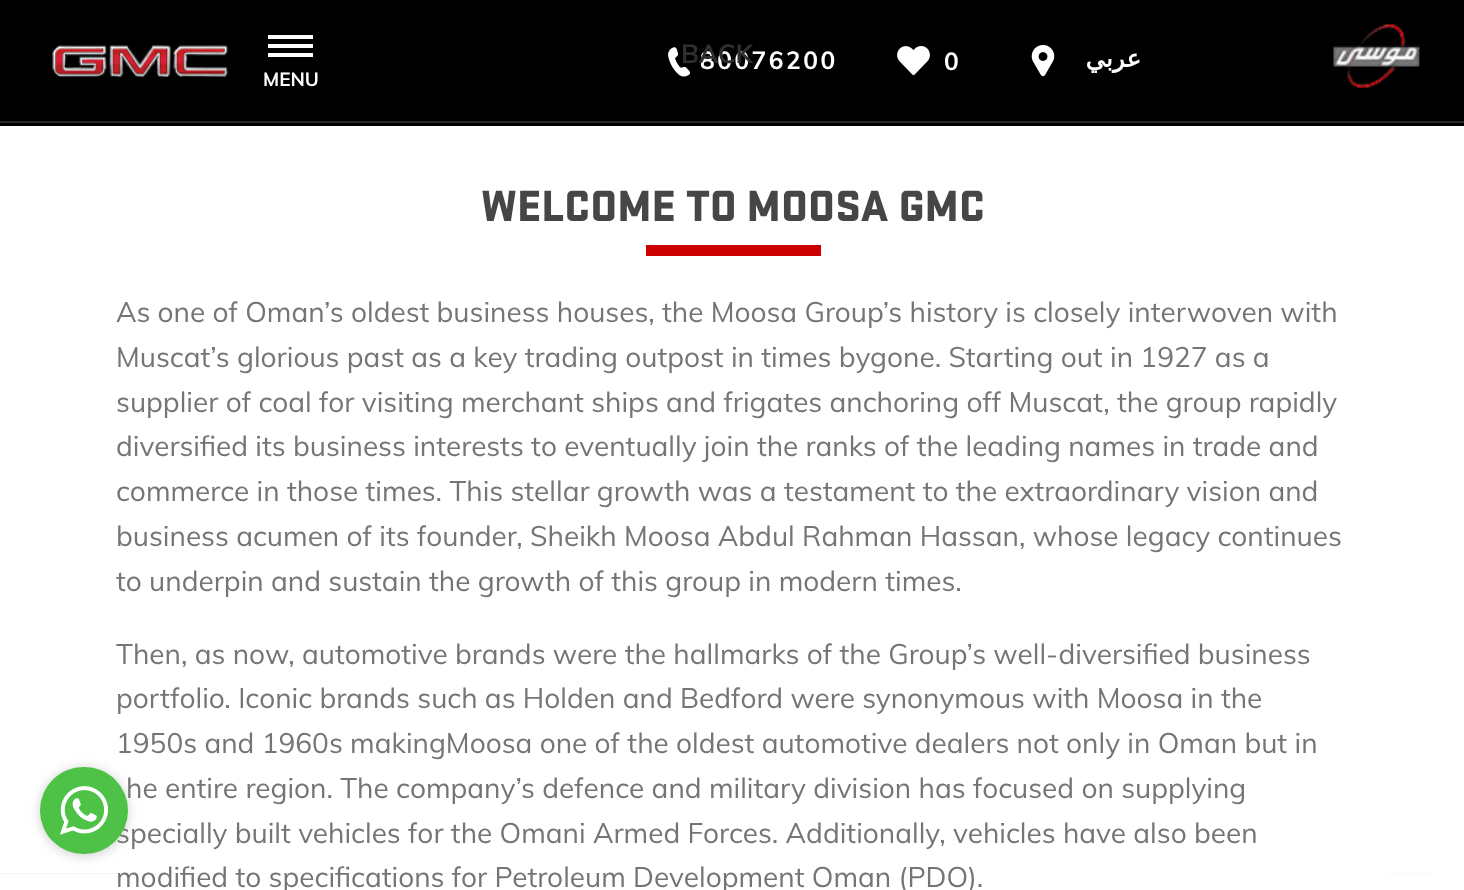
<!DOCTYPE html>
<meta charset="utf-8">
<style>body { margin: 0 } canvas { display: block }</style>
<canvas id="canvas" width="1464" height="890"></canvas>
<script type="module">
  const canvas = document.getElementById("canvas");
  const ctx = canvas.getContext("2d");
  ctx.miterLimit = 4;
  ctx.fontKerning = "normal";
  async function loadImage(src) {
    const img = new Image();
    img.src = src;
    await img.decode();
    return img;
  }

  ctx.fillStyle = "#ffffff";
  ctx.fillRect(0, 0, 1464, 890);
  ctx.drawImage(await loadImage("img7.png"), 0, 873, 1435, 1);
  ctx.fillStyle = "rgba(136, 136, 136, 0.4)";
  ctx.filter = "blur(6px)";
  ctx.beginPath();
  ctx.roundRect(40, 768, 88, 88, 44);
  ctx.fill();
  ctx.filter = "none";
  ctx.font = "28px Muli";
  ctx.fillStyle = "#757575";
  ctx.fillText("specially built vehicles for the Omani Armed Forces. Additionally, vehicles have also been", 116, 843);
  ctx.fillStyle = "#4dc247";
  ctx.beginPath();
  ctx.roundRect(40, 767, 88, 87, 43.5);
  ctx.fill();
  ctx.drawImage(await loadImage("img1.png"), 60, 786, 49, 49);
  ctx.fillStyle = "#000000";
  ctx.fillRect(0, 0, 1464, 126);
  ctx.fillStyle = "#292929";
  ctx.fillRect(0, 121, 1464, 2);
  ctx.drawImage(await loadImage("img3.png"), 668, 47, 22, 30);
  ctx.letterSpacing = "2.5px";
  ctx.font = "bold 24.5px Muli";
  ctx.fillStyle = "#ffffff";
  ctx.fillText("80076200", 700, 69);
  ctx.letterSpacing = "0px";
  ctx.font = "bold 26px Muli";
  ctx.fillStyle = "#2f2f2f";
  ctx.fillText("BACK", 681, 63);
  ctx.drawImage(await loadImage("img2.png"), 52, 45, 176, 32);
  ctx.drawImage(await loadImage("img4.png"), 897, 46, 33, 30);
  ctx.font = "bold 24.5px Muli";
  ctx.fillStyle = "#ffffff";
  ctx.fillText("0", 944, 70);
  ctx.drawImage(await loadImage("img5.png"), 1031, 45, 24, 32);
  ctx.direction = "rtl";
  ctx.font = "bold 24.5px DejaVu Sans";
  ctx.fillText("عربي", 1141, 67);
  ctx.drawImage(await loadImage("img6.png"), 1333, 24, 87, 64);
  ctx.fillRect(268, 44, 45, 4);
  ctx.fillRect(268, 35, 45, 4);
  ctx.fillRect(268, 53, 45, 4);
  ctx.direction = "ltr";
  ctx.font = "bold 19px Muli";
  ctx.fillText("MENU", 263, 86);
  ctx.font = "900 45.5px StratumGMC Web";
  ctx.fillStyle = "#464646";
  ctx.fillText("WELCOME TO MOOSA GMC", 481, 221);
  ctx.fillStyle = "#cc0000";
  ctx.fillRect(646, 245, 175, 11);
  ctx.font = "28px Muli";
  ctx.fillStyle = "#757575";
  ctx.fillText("As one of Oman’s oldest business houses, the Moosa Group’s history is closely interwoven with", 116, 322);
  ctx.fillText("Muscat’s glorious past as a key trading outpost in times bygone. Starting out in 1927 as a", 116, 367);
  ctx.fillText("supplier of coal for visiting merchant ships and frigates anchoring off Muscat, the group rapidly", 116, 412);
  ctx.fillText("diversified its business interests to eventually join the ranks of the leading names in trade and", 116, 456);
  ctx.fillText("commerce in those times. This stellar growth was a testament to the extraordinary vision and", 116, 501);
  ctx.fillText("business acumen of its founder, Sheikh Moosa Abdul Rahman Hassan, whose legacy continues", 116, 546);
  ctx.fillText("to underpin and sustain the growth of this group in modern times.", 116, 591);
  ctx.fillText("Then, as now, automotive brands were the hallmarks of the Group’s well-diversified business", 116, 664);
  ctx.fillText("portfolio. Iconic brands such as Holden and Bedford were synonymous with Moosa in the", 116, 708);
  ctx.fillText("1950s and 1960s makingMoosa one of the oldest automotive dealers not only in Oman but in", 116, 753);
  ctx.fillText("he entire region. The company’s defence and military division has focused on supplying", 126, 798);
  ctx.fillText("modified to specifications for Petroleum Development Oman (PDO).", 116, 887);
</script>
